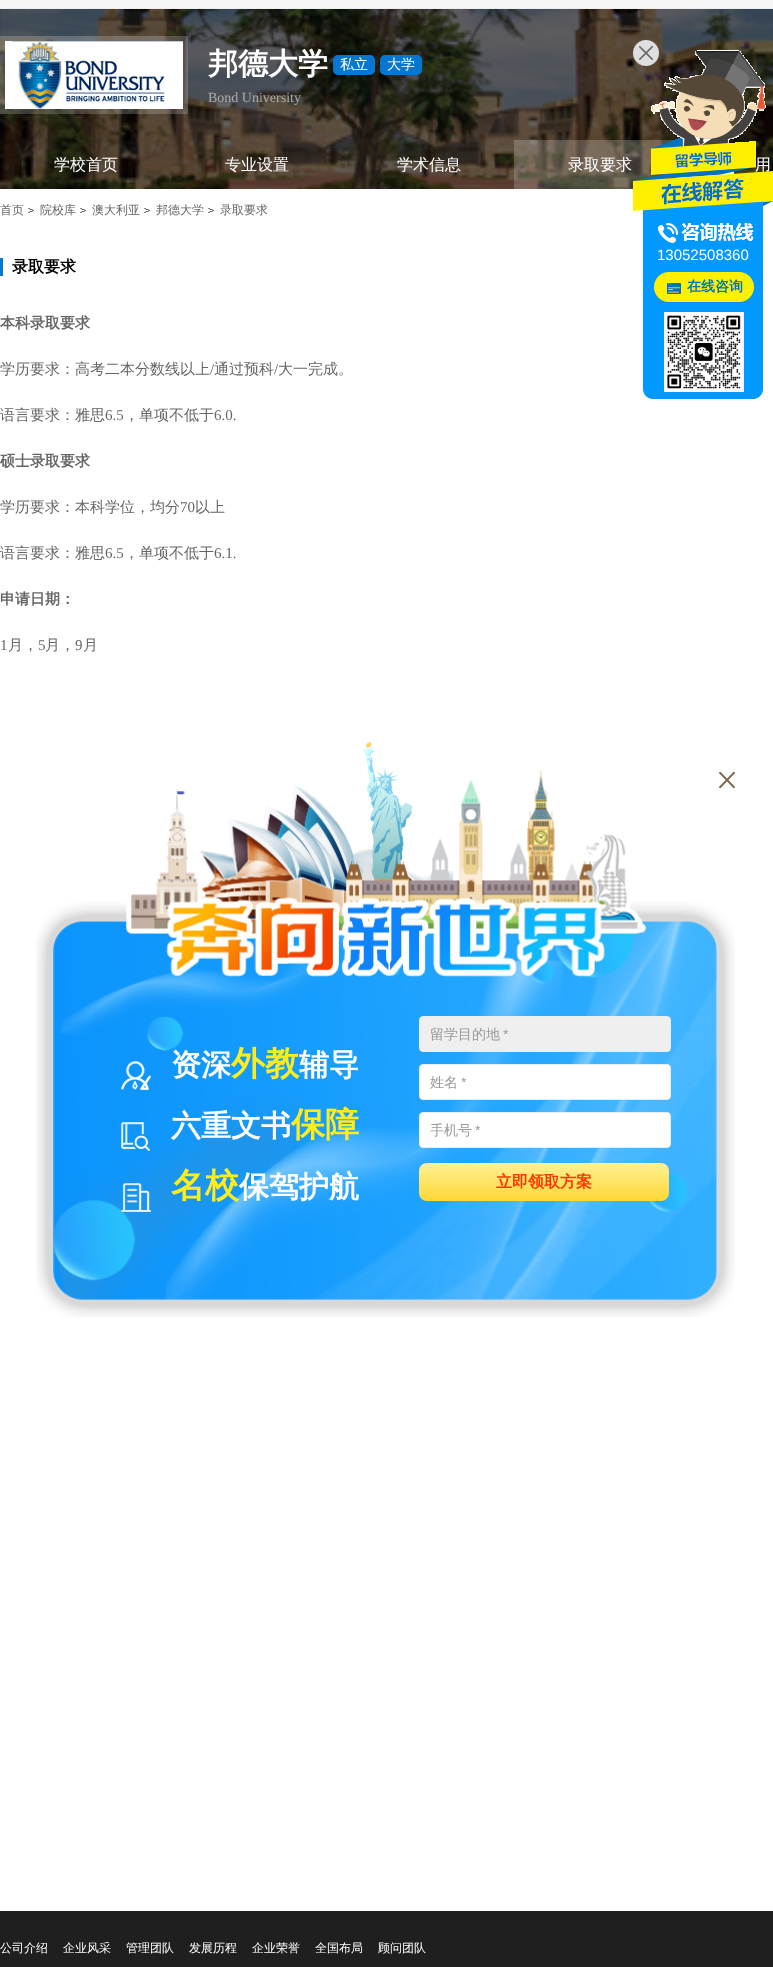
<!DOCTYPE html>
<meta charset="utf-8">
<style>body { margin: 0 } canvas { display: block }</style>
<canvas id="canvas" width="773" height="1967"></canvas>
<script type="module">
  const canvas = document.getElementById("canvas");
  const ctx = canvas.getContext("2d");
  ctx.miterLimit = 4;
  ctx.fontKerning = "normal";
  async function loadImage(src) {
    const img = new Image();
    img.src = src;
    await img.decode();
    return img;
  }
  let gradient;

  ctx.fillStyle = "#ffffff";
  ctx.fillRect(0, 0, 773, 1967);
  ctx.fillStyle = "#f5f5f5";
  ctx.fillRect(0, 0, 773, 8);
  ctx.fillStyle = "#eeeeee";
  ctx.fillRect(0, 8, 773, 1);
  ctx.drawImage(await loadImage("img1.png"), 0, 9, 773, 180);
  ctx.fillStyle = "rgba(255, 255, 255, 0.2)";
  ctx.fillRect(0, 36, 188, 78);
  ctx.drawImage(await loadImage("img2.png"), 5, 41, 178, 68);
  ctx.font = "bold 30px WenQuanYi Zen Hei";
  ctx.fillStyle = "#ffffff";
  ctx.fillText("邦德大学", 208, 74);
  ctx.fillStyle = "#0577d1";
  ctx.beginPath();
  ctx.roundRect(333, 55, 42, 20, 5);
  ctx.fill();
  ctx.font = "500 14px WenQuanYi Zen Hei";
  ctx.fillStyle = "#ffffff";
  ctx.fillText("私立", 340, 69);
  ctx.fillStyle = "#0577d1";
  ctx.beginPath();
  ctx.roundRect(380, 55, 42, 20, 5);
  ctx.fill();
  ctx.fillStyle = "#ffffff";
  ctx.fillText("大学", 387, 69);
  ctx.font = "14px Liberation Serif";
  ctx.fillStyle = "#ababab";
  ctx.fillText("Bond University", 208, 102);
  ctx.font = "500 16px WenQuanYi Zen Hei";
  ctx.fillStyle = "#ffffff";
  ctx.fillText("学校首页", 54, 170);
  ctx.fillText("专业设置", 225, 170);
  ctx.fillText("学术信息", 397, 170);
  ctx.fillStyle = "rgba(255, 255, 255, 0.2)";
  ctx.fillRect(514, 140, 160, 49);
  ctx.fillStyle = "#ffffff";
  ctx.fillText("录取要求", 568, 170);
  ctx.fillText("用", 755, 170);
  ctx.font = "500 12px WenQuanYi Zen Hei";
  ctx.fillStyle = "#666666";
  ctx.fillText("首页", 0, 214);
  ctx.drawImage(await loadImage("img3.png"), 28, 208, 6, 5);
  ctx.fillText("院校库", 40, 214);
  ctx.drawImage(await loadImage("img3.png"), 80, 208, 6, 5);
  ctx.fillText("澳大利亚", 92, 214);
  ctx.drawImage(await loadImage("img3.png"), 144, 208, 6, 5);
  ctx.fillText("邦德大学", 156, 214);
  ctx.drawImage(await loadImage("img3.png"), 208, 208, 6, 5);
  ctx.fillText("录取要求", 220, 214);
  ctx.fillStyle = "#0577d1";
  ctx.fillRect(0, 258, 3, 18);
  ctx.font = "bold 16px WenQuanYi Zen Hei";
  ctx.fillStyle = "#000000";
  ctx.fillText("录取要求", 12, 272);
  ctx.font = "bold 15px WenQuanYi Zen Hei";
  ctx.fillStyle = "#666666";
  ctx.fillText("本科录取要求", 0, 328);
  ctx.font = "500 15px WenQuanYi Zen Hei";
  ctx.fillText("学历要求：高考二本分数线以上", 0, 374);
  ctx.font = "15px Liberation Serif";
  ctx.fillText("/", 210, 374);
  ctx.font = "500 15px WenQuanYi Zen Hei";
  ctx.fillText("通过预科", 214, 374);
  ctx.font = "15px Liberation Serif";
  ctx.fillText("/", 274, 374);
  ctx.font = "500 15px WenQuanYi Zen Hei";
  ctx.fillText("大一完成。", 278, 374);
  ctx.fillText("语言要求：雅思", 0, 420);
  ctx.font = "15px Liberation Serif";
  ctx.fillText("6.5", 105, 420);
  ctx.font = "500 15px WenQuanYi Zen Hei";
  ctx.fillText("，单项不低于", 124, 420);
  ctx.font = "15px Liberation Serif";
  ctx.fillText("6.0.", 214, 420);
  ctx.font = "bold 15px WenQuanYi Zen Hei";
  ctx.fillText("硕士录取要求", 0, 466);
  ctx.font = "500 15px WenQuanYi Zen Hei";
  ctx.fillText("学历要求：本科学位，均分", 0, 512);
  ctx.font = "15px Liberation Serif";
  ctx.fillText("70", 180, 512);
  ctx.font = "500 15px WenQuanYi Zen Hei";
  ctx.fillText("以上", 195, 512);
  ctx.fillText("语言要求：雅思", 0, 558);
  ctx.font = "15px Liberation Serif";
  ctx.fillText("6.5", 105, 558);
  ctx.font = "500 15px WenQuanYi Zen Hei";
  ctx.fillText("，单项不低于", 124, 558);
  ctx.font = "15px Liberation Serif";
  ctx.fillText("6.1.", 214, 558);
  ctx.font = "bold 15px WenQuanYi Zen Hei";
  ctx.fillText("申请日期：", 0, 604);
  ctx.font = "15px Liberation Serif";
  ctx.fillText("1", 0, 650);
  ctx.font = "500 15px WenQuanYi Zen Hei";
  ctx.fillText("月，", 8, 650);
  ctx.font = "15px Liberation Serif";
  ctx.fillText("5", 38, 650);
  ctx.font = "500 15px WenQuanYi Zen Hei";
  ctx.fillText("月，", 45, 650);
  ctx.font = "15px Liberation Serif";
  ctx.fillText("9", 75, 650);
  ctx.font = "500 15px WenQuanYi Zen Hei";
  ctx.fillText("月", 83, 650);
  ctx.drawImage(await loadImage("img4.png"), 633, 150, 140, 249);
  ctx.drawImage(await loadImage("img6.png"), 651, 50, 115, 100);
  ctx.drawImage(await loadImage("img5.png"), 633, 40, 26, 26);
  ctx.font = "15px Liberation Sans";
  ctx.fillStyle = "#ffffff";
  ctx.fillText("13052508360", 657, 260);
  ctx.drawImage(await loadImage("img7.png"), 654, 272, 100, 30);
  ctx.font = "bold 14px WenQuanYi Zen Hei";
  ctx.fillStyle = "#0073bf";
  ctx.fillText("在线咨询", 687, 291);
  ctx.drawImage(await loadImage("img8.png"), 664, 312, 80, 80);
  ctx.drawImage(await loadImage("img9.png"), 36, 741, 699, 576);
  ctx.drawImage(await loadImage("img10.png"), 719, 772, 16, 17);
  ctx.drawImage(await loadImage("img11.png"), 121, 1061, 30, 29);
  ctx.font = "bold 30px WenQuanYi Zen Hei";
  ctx.fillStyle = "#ffffff";
  ctx.fillText("资深", 171, 1075);
  ctx.font = "bold 34px WenQuanYi Zen Hei";
  ctx.fillStyle = "#ffec1c";
  ctx.fillText("外教", 231, 1075);
  ctx.font = "bold 30px WenQuanYi Zen Hei";
  ctx.fillStyle = "#ffffff";
  ctx.fillText("辅导", 299, 1075);
  ctx.drawImage(await loadImage("img12.png"), 121, 1122, 29, 29);
  ctx.fillText("六重文书", 171, 1136);
  ctx.font = "bold 34px WenQuanYi Zen Hei";
  ctx.fillStyle = "#ffec1c";
  ctx.fillText("保障", 291, 1136);
  ctx.drawImage(await loadImage("img13.png"), 121, 1183, 30, 29);
  ctx.fillText("名校", 171, 1197);
  ctx.font = "bold 30px WenQuanYi Zen Hei";
  ctx.fillStyle = "#ffffff";
  ctx.fillText("保驾护航", 239, 1197);
  ctx.beginPath();
  ctx.roundRect(419.5, 1016.5, 251, 35, 3.5);
  ctx.strokeStyle = "#e7eef1";
  ctx.stroke();
  ctx.fillStyle = "#efefef";
  ctx.fillRect(420, 1017, 250, 34);
  ctx.font = "500 14px WenQuanYi Zen Hei";
  ctx.fillStyle = "#999999";
  ctx.fillText("留学目的地", 430, 1039);
  ctx.font = "14px Liberation Sans";
  ctx.fillText("*", 503, 1039);
  ctx.drawImage(await loadImage("img14.png"), 651, 1031, 9, 6);
  ctx.fillStyle = "#ffffff";
  ctx.beginPath();
  ctx.roundRect(419.5, 1064.5, 251, 35, 3.5);
  ctx.fill();
  ctx.stroke();
  ctx.font = "500 14px WenQuanYi Zen Hei";
  ctx.fillStyle = "#999999";
  ctx.fillText("姓名", 430, 1087);
  ctx.font = "14px Liberation Sans";
  ctx.fillText("*", 461, 1087);
  ctx.fillStyle = "#ffffff";
  ctx.beginPath();
  ctx.roundRect(419.5, 1112.5, 251, 35, 3.5);
  ctx.fill();
  ctx.stroke();
  ctx.font = "500 14px WenQuanYi Zen Hei";
  ctx.fillStyle = "#999999";
  ctx.fillText("手机号", 430, 1135);
  ctx.font = "14px Liberation Sans";
  ctx.fillText("*", 475, 1135);
  gradient = ctx.createLinearGradient(544, 1163, 544, 1201);
  gradient.addColorStop(0, "#fff193");
  gradient.addColorStop(1, "#fed734");
  ctx.fillStyle = gradient;
  ctx.beginPath();
  ctx.roundRect(419, 1163, 250, 38, 8);
  ctx.fill();
  ctx.font = "bold 16px WenQuanYi Zen Hei";
  ctx.fillStyle = "#ff3400";
  ctx.fillText("立即领取方案", 496, 1187);
  ctx.fillStyle = "#1f1f1f";
  ctx.fillRect(0, 1911, 773, 56);
  ctx.font = "500 12px WenQuanYi Zen Hei";
  ctx.fillStyle = "#ffffff";
  ctx.fillText("公司介绍", 0, 1952);
  ctx.fillText("企业风采", 63, 1952);
  ctx.fillText("管理团队", 126, 1952);
  ctx.fillText("发展历程", 189, 1952);
  ctx.fillText("企业荣誉", 252, 1952);
  ctx.fillText("全国布局", 315, 1952);
  ctx.fillText("顾问团队", 378, 1952);
</script>
